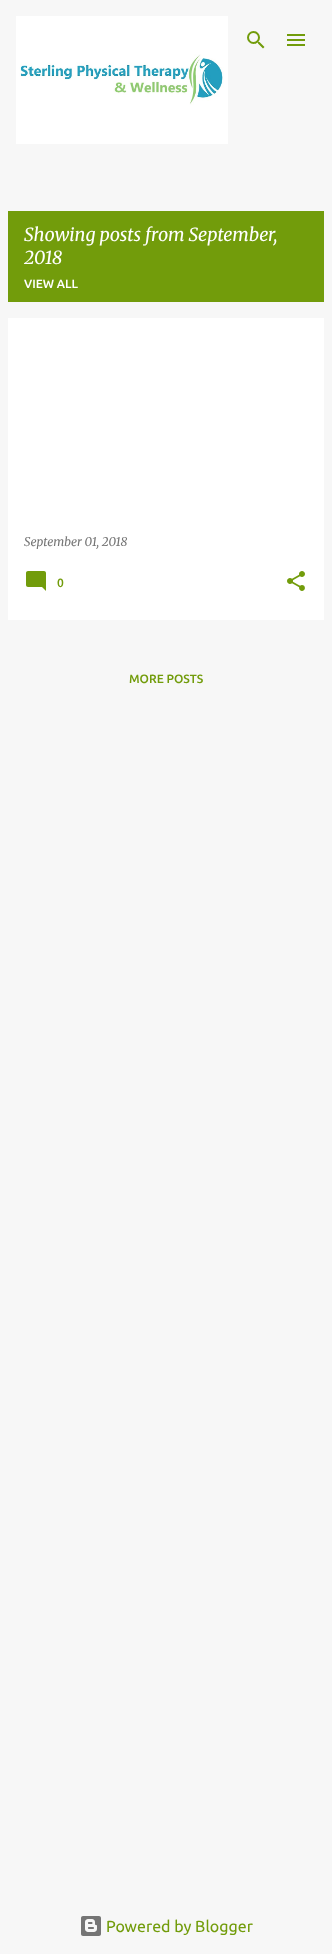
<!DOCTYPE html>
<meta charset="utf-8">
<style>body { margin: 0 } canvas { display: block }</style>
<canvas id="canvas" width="332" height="1954"></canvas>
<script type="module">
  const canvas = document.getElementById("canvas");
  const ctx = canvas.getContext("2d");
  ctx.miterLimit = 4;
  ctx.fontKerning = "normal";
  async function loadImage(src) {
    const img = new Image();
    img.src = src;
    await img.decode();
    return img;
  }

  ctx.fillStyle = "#f7f7f7";
  ctx.fillRect(0, 0, 332, 1954);
  ctx.drawImage(await loadImage("img1.png"), 16, 16, 212, 128);
  ctx.drawImage(await loadImage("img2.png"), 247, 31, 18, 18);
  ctx.drawImage(await loadImage("img3.png"), 287, 34, 18, 12);
  ctx.fillStyle = "#729c0b";
  ctx.fillRect(8, 211, 316, 91);
  ctx.font = "italic 18px Merriweather";
  ctx.fillStyle = "#ffffff";
  ctx.fillText("Showing posts from September,", 24, 241);
  ctx.fillText("2018", 24, 264);
  ctx.font = "500 12px Ubuntu";
  ctx.fillText("VIEW ALL", 24, 288);
  ctx.fillRect(8, 318, 316, 302);
  ctx.font = "italic 12px Merriweather";
  ctx.fillStyle = "#757575";
  ctx.fillText("September 01, 2018", 24, 546);
  ctx.drawImage(await loadImage("img4.png"), 26, 571, 20, 20);
  ctx.font = "500 12px Ubuntu";
  ctx.fillStyle = "#729c0b";
  ctx.fillText("0", 57, 587);
  ctx.drawImage(await loadImage("img5.png"), 287, 571, 18, 20);
  ctx.fillText("MORE POSTS", 129, 683);
  ctx.drawImage(await loadImage("img6.png"), 81, 1916, 20, 20);
  ctx.font = "16px Ubuntu";
  ctx.fillText("Powered by Blogger", 106, 1932);
</script>
